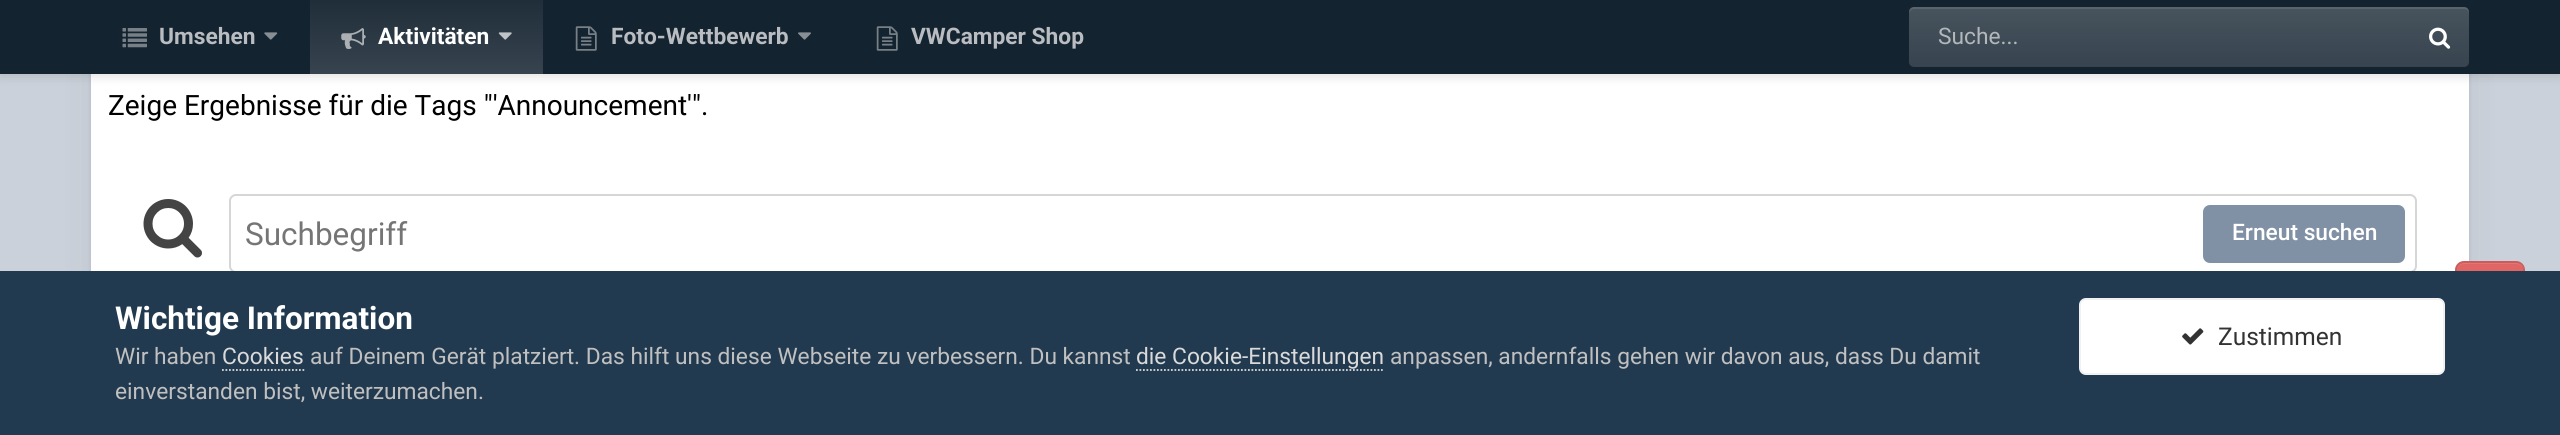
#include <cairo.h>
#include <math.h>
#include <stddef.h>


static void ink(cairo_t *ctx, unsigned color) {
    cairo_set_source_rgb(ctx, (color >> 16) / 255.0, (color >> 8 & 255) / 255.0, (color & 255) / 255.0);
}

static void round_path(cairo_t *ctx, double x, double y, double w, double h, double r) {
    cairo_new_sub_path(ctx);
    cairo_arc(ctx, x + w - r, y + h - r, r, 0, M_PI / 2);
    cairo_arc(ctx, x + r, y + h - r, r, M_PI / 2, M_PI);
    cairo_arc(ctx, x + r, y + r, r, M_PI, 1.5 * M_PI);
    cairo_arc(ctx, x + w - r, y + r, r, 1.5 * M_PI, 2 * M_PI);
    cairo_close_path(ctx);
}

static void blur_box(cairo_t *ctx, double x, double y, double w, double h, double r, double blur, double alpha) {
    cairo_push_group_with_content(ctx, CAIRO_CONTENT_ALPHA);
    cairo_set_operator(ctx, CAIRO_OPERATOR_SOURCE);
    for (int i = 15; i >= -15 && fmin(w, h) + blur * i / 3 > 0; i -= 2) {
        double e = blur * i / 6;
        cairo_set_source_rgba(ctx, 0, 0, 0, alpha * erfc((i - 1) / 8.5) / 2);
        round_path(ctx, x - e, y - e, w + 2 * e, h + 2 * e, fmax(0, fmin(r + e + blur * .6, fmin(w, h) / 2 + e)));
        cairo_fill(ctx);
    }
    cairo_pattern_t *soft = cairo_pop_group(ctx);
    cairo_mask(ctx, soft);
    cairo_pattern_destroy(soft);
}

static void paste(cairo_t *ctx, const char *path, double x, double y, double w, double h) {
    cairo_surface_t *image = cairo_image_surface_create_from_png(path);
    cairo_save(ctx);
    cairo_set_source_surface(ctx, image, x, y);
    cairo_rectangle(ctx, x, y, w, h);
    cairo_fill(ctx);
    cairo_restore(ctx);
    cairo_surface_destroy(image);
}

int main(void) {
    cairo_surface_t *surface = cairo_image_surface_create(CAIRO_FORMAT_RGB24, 2560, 435);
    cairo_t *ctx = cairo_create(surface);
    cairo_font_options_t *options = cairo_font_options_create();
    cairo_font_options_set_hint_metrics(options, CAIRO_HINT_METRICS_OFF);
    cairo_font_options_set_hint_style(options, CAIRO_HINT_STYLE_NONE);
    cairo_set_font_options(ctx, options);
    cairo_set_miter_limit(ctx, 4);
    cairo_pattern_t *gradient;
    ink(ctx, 0xCBD1DA);
    cairo_paint(ctx);
    ink(ctx, 0x000000);
    blur_box(ctx, 91, -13, 2378, 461, 5, 2.5, 0.08);
    blur_box(ctx, 91, -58, 2378, 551, 5, 17.5, 0.06);
    ink(ctx, 0xFFFFFF);
    cairo_rectangle(ctx, 91, 74, 2378, 197);
    cairo_fill(ctx);
    ink(ctx, 0x000000);
    blur_box(ctx, 0, 2, 2560, 73, 0, 6, 0.15);
    ink(ctx, 0x142330);
    cairo_rectangle(ctx, 0, 0, 2560, 74);
    cairo_fill(ctx);
    paste(ctx, "media/1.png", 122, 28, 25, 20);
    cairo_select_font_face(ctx, "Roboto", CAIRO_FONT_SLANT_NORMAL, CAIRO_FONT_WEIGHT_BOLD);
    cairo_set_font_size(ctx, 22.75);
    ink(ctx, 0xB9BDC1);
    cairo_move_to(ctx, 159, 44);
    cairo_show_text(ctx, "Umsehen");
    paste(ctx, "media/2.png", 264, 32, 14, 8);
    gradient = cairo_pattern_create_linear(426, 0, 426, 74);
    cairo_pattern_add_color_stop_rgba(gradient, 0, 0.125, 0.18, 0.227, 1);
    cairo_pattern_add_color_stop_rgba(gradient, 1, 0.216, 0.267, 0.31, 1);
    cairo_set_source(ctx, gradient);
    cairo_pattern_destroy(gradient);
    cairo_rectangle(ctx, 310, 0, 233, 74);
    cairo_fill(ctx);
    paste(ctx, "media/3.png", 341, 28, 25, 21);
    ink(ctx, 0xFFFFFF);
    cairo_move_to(ctx, 378, 44);
    cairo_show_text(ctx, "Aktivitäten");
    paste(ctx, "media/4.png", 498, 32, 14, 8);
    paste(ctx, "media/5.png", 575, 26, 22, 25);
    ink(ctx, 0xB9BDC1);
    cairo_move_to(ctx, 611, 44);
    cairo_show_text(ctx, "Foto-Wettbewerb");
    paste(ctx, "media/6.png", 798, 32, 13, 8);
    paste(ctx, "media/5.png", 876, 26, 22, 25);
    cairo_move_to(ctx, 911, 44);
    cairo_show_text(ctx, "VWCamper Shop");
    ink(ctx, 0x37444F);
    round_path(ctx, 1909, 7, 560, 60, 5);
    cairo_fill(ctx);
    gradient = cairo_pattern_create_linear(2189, 7, 2189, 67);
    cairo_pattern_add_color_stop_rgba(gradient, 0, 1, 1, 1, 0.08);
    cairo_pattern_add_color_stop_rgba(gradient, 1, 1, 1, 1, 0);
    cairo_set_source(ctx, gradient);
    cairo_pattern_destroy(gradient);
    round_path(ctx, 1909, 7, 560, 60, 5);
    cairo_fill(ctx);
    cairo_set_source_rgba(ctx, 1, 1, 1, 0.1);
    cairo_new_path(ctx);
    cairo_move_to(ctx, 1914, 9);
    cairo_line_to(ctx, 2464, 9);
    cairo_curve_to(ctx, 2467, 9, 2469, 11, 2469, 14);
    cairo_line_to(ctx, 2469, 12);
    cairo_curve_to(ctx, 2469, 9, 2467, 7, 2464, 7);
    cairo_line_to(ctx, 1914, 7);
    cairo_curve_to(ctx, 1911, 7, 1909, 9, 1909, 12);
    cairo_line_to(ctx, 1909, 14);
    cairo_curve_to(ctx, 1909, 11, 1912, 9, 1914, 9);
    cairo_close_path(ctx);
    cairo_fill(ctx);
    cairo_select_font_face(ctx, "Roboto", CAIRO_FONT_SLANT_NORMAL, CAIRO_FONT_WEIGHT_NORMAL);
    ink(ctx, 0xB2B7BB);
    cairo_move_to(ctx, 1938, 44);
    cairo_show_text(ctx, "Suche...");
    paste(ctx, "media/7.png", 2429, 27, 22, 22);
    cairo_set_font_size(ctx, 28);
    ink(ctx, 0x000000);
    cairo_move_to(ctx, 108, 115);
    cairo_show_text(ctx, "Zeige Ergebnisse für die Tags \"'Announcement'\".");
    paste(ctx, "media/8.png", 143, 199, 59, 59);
    round_path(ctx, 230, 195, 2186, 77, 6);
    ink(ctx, 0xD6D6D6);
    cairo_stroke(ctx);
    cairo_set_font_size(ctx, 31.5);
    ink(ctx, 0x757575);
    cairo_move_to(ctx, 245, 245);
    cairo_show_text(ctx, "Suchbegriff");
    ink(ctx, 0x8191A5);
    round_path(ctx, 2203, 205, 202, 58, 7);
    cairo_fill(ctx);
    cairo_select_font_face(ctx, "Roboto Medium", CAIRO_FONT_SLANT_NORMAL, CAIRO_FONT_WEIGHT_NORMAL);
    cairo_set_font_size(ctx, 22.75);
    ink(ctx, 0xFFFFFF);
    cairo_move_to(ctx, 2232, 240);
    cairo_show_text(ctx, "Erneut suchen");
    ink(ctx, 0xE06666);
    round_path(ctx, 2455, 261, 70, 70, 9);
    cairo_fill(ctx);
    ink(ctx, 0xE37575);
    cairo_new_path(ctx);
    cairo_move_to(ctx, 2464, 264);
    cairo_line_to(ctx, 2516, 264);
    cairo_curve_to(ctx, 2520, 264, 2524, 267, 2524, 271);
    cairo_curve_to(ctx, 2524, 261, 2515, 263, 2508, 263);
    cairo_line_to(ctx, 2473, 263);
    cairo_curve_to(ctx, 2466, 263, 2457, 261, 2457, 271);
    cairo_curve_to(ctx, 2457, 267, 2460, 264, 2464, 264);
    cairo_close_path(ctx);
    cairo_fill(ctx);
    round_path(ctx, 2456, 262, 68, 68, 8);
    cairo_set_source_rgba(ctx, 0, 0, 0, 0.1);
    cairo_stroke(ctx);
    ink(ctx, 0x223A50);
    cairo_rectangle(ctx, 0, 271, 2560, 164);
    cairo_fill(ctx);
    cairo_select_font_face(ctx, "Roboto", CAIRO_FONT_SLANT_NORMAL, CAIRO_FONT_WEIGHT_BOLD);
    cairo_set_font_size(ctx, 31.5);
    ink(ctx, 0xFFFFFF);
    cairo_move_to(ctx, 115, 329);
    cairo_show_text(ctx, "Wichtige Information");
    cairo_select_font_face(ctx, "Roboto", CAIRO_FONT_SLANT_NORMAL, CAIRO_FONT_WEIGHT_NORMAL);
    cairo_set_font_size(ctx, 22.75);
    ink(ctx, 0xC0C0C0);
    cairo_move_to(ctx, 115, 364);
    cairo_show_text(ctx, "Wir haben");
    ink(ctx, 0xDADADA);
    cairo_move_to(ctx, 222, 364);
    cairo_show_text(ctx, "Cookies");
    cairo_new_path(ctx);
    cairo_move_to(ctx, 222, 370);
    cairo_line_to(ctx, 304.5, 370);
    cairo_set_line_width(ctx, 1.8);
    cairo_set_dash(ctx, (double[]){1.75, 1.75}, 2, 0);
    cairo_stroke(ctx);
    ink(ctx, 0xC0C0C0);
    cairo_move_to(ctx, 310, 364);
    cairo_show_text(ctx, "auf Deinem Gerät platziert. Das hilft uns diese Webseite zu verbessern. Du kannst");
    ink(ctx, 0xDADADA);
    cairo_move_to(ctx, 1136, 364);
    cairo_show_text(ctx, "die Cookie-Einstellungen");
    cairo_new_path(ctx);
    cairo_move_to(ctx, 1136, 370);
    cairo_line_to(ctx, 1384, 370);
    cairo_stroke(ctx);
    ink(ctx, 0xC0C0C0);
    cairo_move_to(ctx, 1390, 364);
    cairo_show_text(ctx, "anpassen, andernfalls gehen wir davon aus, dass Du damit");
    cairo_move_to(ctx, 115, 399);
    cairo_show_text(ctx, "einverstanden bist, weiterzumachen.");
    ink(ctx, 0xFFFFFF);
    round_path(ctx, 2079, 298, 366, 77, 7);
    cairo_fill(ctx);
    round_path(ctx, 2080, 299, 364, 75, 6);
    cairo_set_source_rgba(ctx, 0.2, 0.2, 0.2, 0.07);
    cairo_set_line_width(ctx, 2);
    cairo_set_dash(ctx, NULL, 0, 0);
    cairo_stroke(ctx);
    paste(ctx, "media/9.png", 2182, 328, 22, 17);
    cairo_set_font_size(ctx, 24.5);
    ink(ctx, 0x333333);
    cairo_move_to(ctx, 2218, 345);
    cairo_show_text(ctx, "Zustimmen");
    cairo_surface_write_to_png(surface, "image.png");
    cairo_font_options_destroy(options);
    cairo_destroy(ctx);
    cairo_surface_destroy(surface);
    return 0;
}
